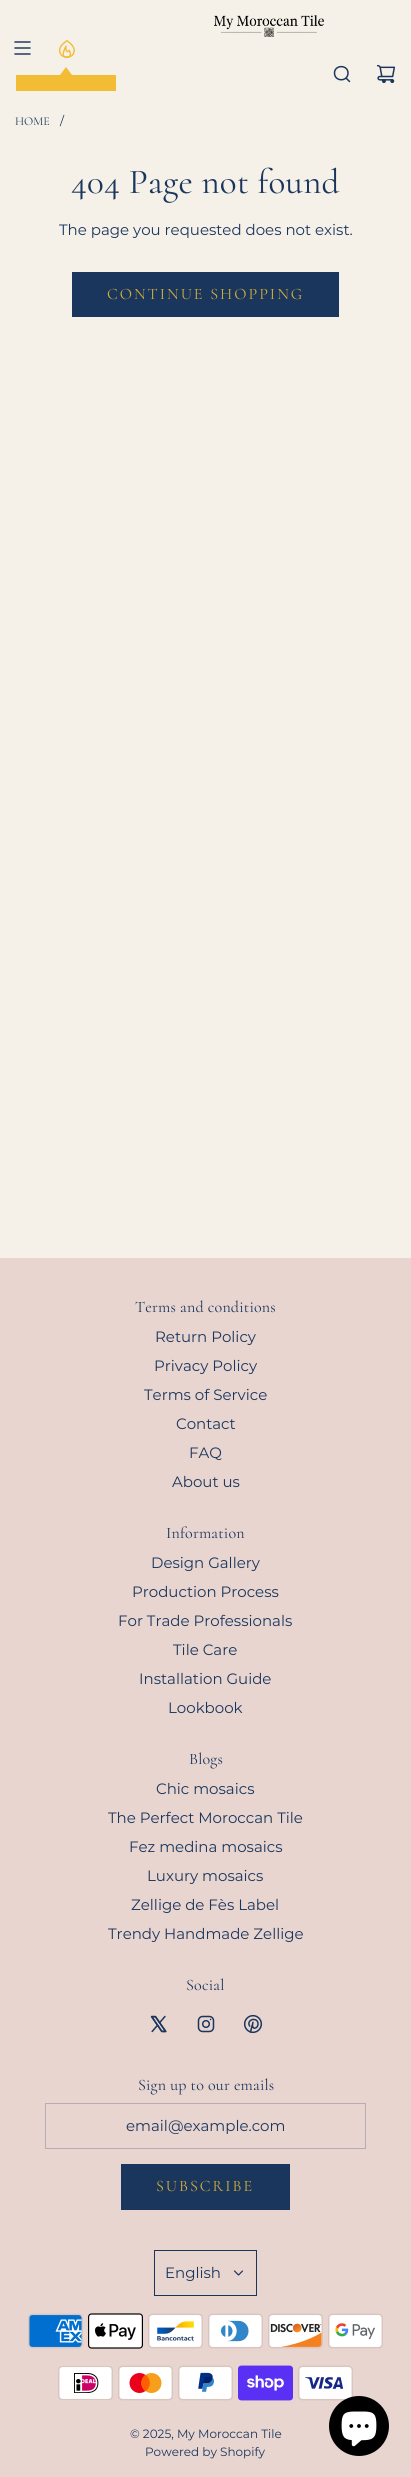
#include <cairo.h>
#include <math.h>
#include <stddef.h>

typedef struct { double x, y; const char *s; } line_t;

static void ink(cairo_t *ctx, unsigned color) {
    cairo_set_source_rgb(ctx, (color >> 16) / 255.0, (color >> 8 & 255) / 255.0, (color & 255) / 255.0);
}

static void write_spaced(cairo_t *ctx, double x, double y, const char *s, double letter, double word) {
    cairo_move_to(ctx, x, y);
    while (*s) {
        char ch[5] = {0};
        int n = 0;
        do ch[n++] = *s++; while ((*s & 0xC0) == 0x80);
        cairo_show_text(ctx, ch);
        cairo_rel_move_to(ctx, letter + word * (*ch == ' '), 0);
    }
}

static void paste(cairo_t *ctx, const char *path, double x, double y, double w, double h) {
    cairo_surface_t *image = cairo_image_surface_create_from_png(path);
    cairo_save(ctx);
    cairo_set_source_surface(ctx, image, x, y);
    cairo_rectangle(ctx, x, y, w, h);
    cairo_fill(ctx);
    cairo_restore(ctx);
    cairo_surface_destroy(image);
}

int main(void) {
    cairo_surface_t *surface = cairo_image_surface_create(CAIRO_FORMAT_RGB24, 411, 2477);
    cairo_t *ctx = cairo_create(surface);
    cairo_font_options_t *options = cairo_font_options_create();
    cairo_font_options_set_hint_metrics(options, CAIRO_HINT_METRICS_OFF);
    cairo_font_options_set_hint_style(options, CAIRO_HINT_STYLE_NONE);
    cairo_set_font_options(ctx, options);
    cairo_set_miter_limit(ctx, 4);
    ink(ctx, 0xF5F1E8);
    cairo_paint(ctx);
    paste(ctx, "media/1.png", 58, 40, 17, 18);
    ink(ctx, 0xF2BD35);
    cairo_rectangle(ctx, 16, 75, 100, 16);
    cairo_fill(ctx);
    cairo_new_path(ctx);
    cairo_move_to(ctx, 72, 75);
    cairo_line_to(ctx, 60, 75);
    cairo_line_to(ctx, 66, 67);
    cairo_close_path(ctx);
    cairo_fill(ctx);
    cairo_new_path(ctx);
    cairo_move_to(ctx, 15, 42);
    cairo_line_to(ctx, 30, 42);
    cairo_move_to(ctx, 15, 48);
    cairo_line_to(ctx, 30, 48);
    cairo_move_to(ctx, 15, 54);
    cairo_line_to(ctx, 30, 54);
    ink(ctx, 0x1B365D);
    cairo_set_line_width(ctx, 1.5);
    cairo_set_line_cap(ctx, CAIRO_LINE_CAP_ROUND);
    cairo_set_line_join(ctx, CAIRO_LINE_JOIN_ROUND);
    cairo_stroke(ctx);
    paste(ctx, "media/2.png", 214, 15, 110, 22);
    cairo_new_path(ctx);
    cairo_move_to(ctx, 346, 78);
    cairo_line_to(ctx, 349.5, 81.5);
    cairo_move_to(ctx, 334.5, 73);
    cairo_curve_to(ctx, 334.5, 82, 348, 82, 348, 73);
    cairo_curve_to(ctx, 348, 64.5, 334.5, 64.5, 334.5, 73);
    cairo_close_path(ctx);
    cairo_stroke(ctx);
    paste(ctx, "media/3.png", 376, 64, 20, 20);
    cairo_select_font_face(ctx, "Cormorant", CAIRO_FONT_SLANT_NORMAL, CAIRO_FONT_WEIGHT_NORMAL);
    cairo_set_font_size(ctx, 12);
    cairo_move_to(ctx, 15, 125);
    cairo_show_text(ctx, "HOME");
    cairo_select_font_face(ctx, "Montserrat", CAIRO_FONT_SLANT_NORMAL, CAIRO_FONT_WEIGHT_NORMAL);
    cairo_move_to(ctx, 60, 125);
    cairo_show_text(ctx, "/");
    cairo_select_font_face(ctx, "Cormorant", CAIRO_FONT_SLANT_NORMAL, CAIRO_FONT_WEIGHT_NORMAL);
    cairo_set_font_size(ctx, 35);
    write_spaced(ctx, 71, 193, "404 Page not found", 0.3, 0);
    cairo_select_font_face(ctx, "Montserrat", CAIRO_FONT_SLANT_NORMAL, CAIRO_FONT_WEIGHT_NORMAL);
    cairo_set_font_size(ctx, 15);
    cairo_move_to(ctx, 59, 235);
    cairo_show_text(ctx, "The page you requested does not exist.");
    cairo_rectangle(ctx, 72, 272, 267, 45);
    cairo_fill(ctx);
    cairo_select_font_face(ctx, "Cormorant", CAIRO_FONT_SLANT_NORMAL, CAIRO_FONT_WEIGHT_NORMAL);
    cairo_set_font_size(ctx, 16);
    ink(ctx, 0xD4AF37);
    write_spaced(ctx, 107, 299, "CONTINUE SHOPPING", 2, 0);
    ink(ctx, 0xE8D5CF);
    cairo_rectangle(ctx, 0, 1258, 411, 1219);
    cairo_fill(ctx);
    ink(ctx, 0x1B365D);
    write_spaced(ctx, 135, 1312, "Terms and conditions", 0.2, 0);
    cairo_select_font_face(ctx, "Montserrat", CAIRO_FONT_SLANT_NORMAL, CAIRO_FONT_WEIGHT_NORMAL);
    cairo_set_font_size(ctx, 15);
    {
        static const line_t items[] = {
            {155, 1342, "Return Policy"},
            {154, 1371, "Privacy Policy"},
            {144, 1400, "Terms of Service"},
            {176, 1429, "Contact"},
            {189, 1458, "FAQ"},
            {172, 1487, "About us"},
        };
        for (size_t i = 0; i < sizeof items / sizeof *items; i++) {
            cairo_move_to(ctx, items[i].x, items[i].y);
            cairo_show_text(ctx, items[i].s);
        }
    }
    cairo_select_font_face(ctx, "Cormorant", CAIRO_FONT_SLANT_NORMAL, CAIRO_FONT_WEIGHT_NORMAL);
    cairo_set_font_size(ctx, 16);
    write_spaced(ctx, 166, 1538, "Information", 0.2, 0);
    cairo_select_font_face(ctx, "Montserrat", CAIRO_FONT_SLANT_NORMAL, CAIRO_FONT_WEIGHT_NORMAL);
    cairo_set_font_size(ctx, 15);
    {
        static const line_t items[] = {
            {151, 1568, "Design Gallery"},
            {132, 1597, "Production Process"},
            {118, 1626, "For Trade Professionals"},
            {173, 1655, "Tile Care"},
            {139, 1684, "Installation Guide"},
            {168, 1713, "Lookbook"},
        };
        for (size_t i = 0; i < sizeof items / sizeof *items; i++) {
            cairo_move_to(ctx, items[i].x, items[i].y);
            cairo_show_text(ctx, items[i].s);
        }
    }
    cairo_select_font_face(ctx, "Cormorant", CAIRO_FONT_SLANT_NORMAL, CAIRO_FONT_WEIGHT_NORMAL);
    cairo_set_font_size(ctx, 16);
    write_spaced(ctx, 189, 1764, "Blogs", 0.2, 0);
    cairo_select_font_face(ctx, "Montserrat", CAIRO_FONT_SLANT_NORMAL, CAIRO_FONT_WEIGHT_NORMAL);
    cairo_set_font_size(ctx, 15);
    {
        static const line_t items[] = {
            {156, 1794, "Chic mosaics"},
            {108, 1823, "The Perfect Moroccan Tile"},
            {129, 1852, "Fez medina mosaics"},
            {147, 1881, "Luxury mosaics"},
            {131, 1910, "Zellige de Fès Label"},
            {108, 1939, "Trendy Handmade Zellige"},
        };
        for (size_t i = 0; i < sizeof items / sizeof *items; i++) {
            cairo_move_to(ctx, items[i].x, items[i].y);
            cairo_show_text(ctx, items[i].s);
        }
    }
    cairo_select_font_face(ctx, "Cormorant", CAIRO_FONT_SLANT_NORMAL, CAIRO_FONT_WEIGHT_NORMAL);
    cairo_set_font_size(ctx, 16);
    write_spaced(ctx, 186, 1990, "Social", 0.2, 0);
    paste(ctx, "media/4.png", 150, 2015, 17, 18);
    paste(ctx, "media/5.png", 197, 2015, 18, 18);
    paste(ctx, "media/6.png", 243, 2014, 20, 20);
    write_spaced(ctx, 138, 2090, "Sign up to our emails", 0.2, 0);
    cairo_rectangle(ctx, 45.5, 2103.5, 320, 45);
    ink(ctx, 0xB5ADB3);
    cairo_set_line_width(ctx, 1);
    cairo_set_line_cap(ctx, CAIRO_LINE_CAP_BUTT);
    cairo_set_line_join(ctx, CAIRO_LINE_JOIN_MITER);
    cairo_stroke(ctx);
    cairo_select_font_face(ctx, "Montserrat", CAIRO_FONT_SLANT_NORMAL, CAIRO_FONT_WEIGHT_NORMAL);
    cairo_set_font_size(ctx, 15);
    ink(ctx, 0x1B365D);
    cairo_move_to(ctx, 126, 2131);
    cairo_show_text(ctx, "email@example.com");
    cairo_rectangle(ctx, 121, 2164, 169, 46);
    cairo_fill(ctx);
    cairo_select_font_face(ctx, "Cormorant", CAIRO_FONT_SLANT_NORMAL, CAIRO_FONT_WEIGHT_NORMAL);
    cairo_set_font_size(ctx, 16);
    ink(ctx, 0xD4AF37);
    write_spaced(ctx, 156, 2191, "SUBSCRIBE", 2, 0);
    cairo_rectangle(ctx, 154.5, 2250.5, 102, 45);
    ink(ctx, 0x1B365D);
    cairo_stroke(ctx);
    cairo_select_font_face(ctx, "Montserrat", CAIRO_FONT_SLANT_NORMAL, CAIRO_FONT_WEIGHT_NORMAL);
    cairo_set_font_size(ctx, 15);
    cairo_move_to(ctx, 165, 2278);
    cairo_show_text(ctx, "English");
    cairo_new_path(ctx);
    cairo_move_to(ctx, 234.5, 2271);
    cairo_line_to(ctx, 238.5, 2275);
    cairo_line_to(ctx, 242.5, 2271);
    cairo_set_line_width(ctx, 1.2);
    cairo_set_line_cap(ctx, CAIRO_LINE_CAP_ROUND);
    cairo_set_line_join(ctx, CAIRO_LINE_JOIN_ROUND);
    cairo_stroke(ctx);
    paste(ctx, "media/7.png", 28, 2313, 55, 36);
    paste(ctx, "media/8.png", 88, 2313, 55, 36);
    paste(ctx, "media/9.png", 148, 2313, 55, 36);
    paste(ctx, "media/10.png", 208, 2313, 55, 36);
    paste(ctx, "media/11.png", 268, 2313, 55, 36);
    paste(ctx, "media/12.png", 328, 2313, 55, 36);
    paste(ctx, "media/13.png", 58, 2366, 55, 34);
    paste(ctx, "media/14.png", 118, 2365, 55, 36);
    paste(ctx, "media/15.png", 178, 2365, 55, 36);
    paste(ctx, "media/16.png", 238, 2365, 55, 36);
    paste(ctx, "media/17.png", 298, 2365, 55, 36);
    cairo_set_font_size(ctx, 12);
    cairo_move_to(ctx, 130, 2438);
    cairo_show_text(ctx, "© 2025, My Moroccan Tile");
    cairo_move_to(ctx, 145, 2456);
    cairo_show_text(ctx, "Powered by Shopify");
    ink(ctx, 0x000000);
    cairo_new_path(ctx);
    cairo_arc(ctx, 359, 2426, 30, 0, 2 * M_PI);
    cairo_fill(ctx);
    paste(ctx, "media/18.png", 341, 2411, 36, 36);
    cairo_surface_write_to_png(surface, "image.png");
    cairo_font_options_destroy(options);
    cairo_destroy(ctx);
    cairo_surface_destroy(surface);
    return 0;
}
